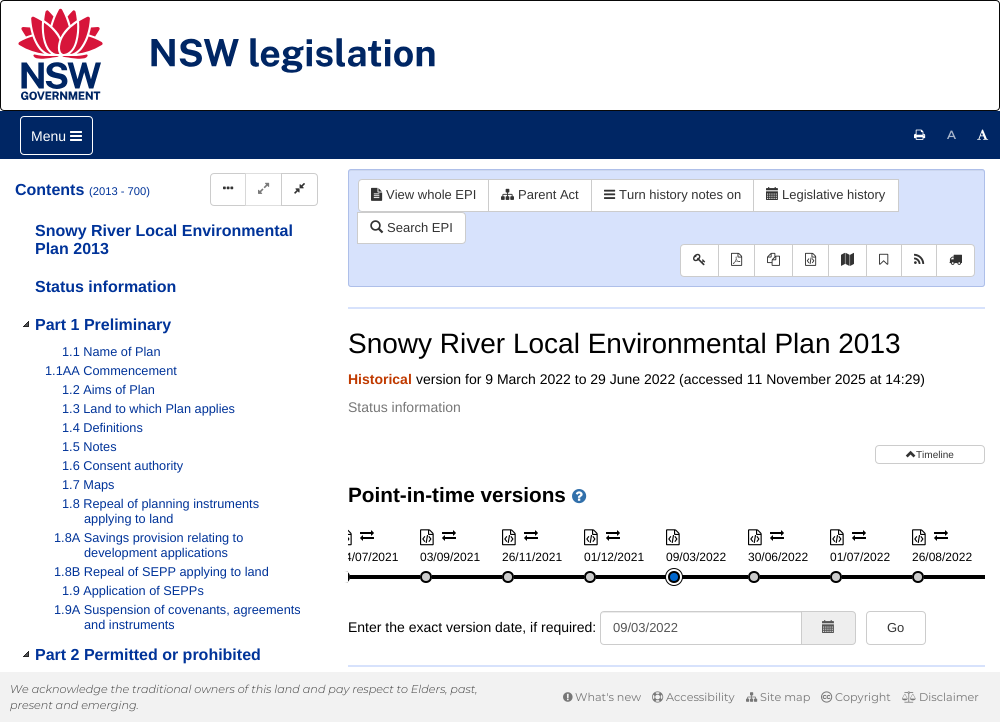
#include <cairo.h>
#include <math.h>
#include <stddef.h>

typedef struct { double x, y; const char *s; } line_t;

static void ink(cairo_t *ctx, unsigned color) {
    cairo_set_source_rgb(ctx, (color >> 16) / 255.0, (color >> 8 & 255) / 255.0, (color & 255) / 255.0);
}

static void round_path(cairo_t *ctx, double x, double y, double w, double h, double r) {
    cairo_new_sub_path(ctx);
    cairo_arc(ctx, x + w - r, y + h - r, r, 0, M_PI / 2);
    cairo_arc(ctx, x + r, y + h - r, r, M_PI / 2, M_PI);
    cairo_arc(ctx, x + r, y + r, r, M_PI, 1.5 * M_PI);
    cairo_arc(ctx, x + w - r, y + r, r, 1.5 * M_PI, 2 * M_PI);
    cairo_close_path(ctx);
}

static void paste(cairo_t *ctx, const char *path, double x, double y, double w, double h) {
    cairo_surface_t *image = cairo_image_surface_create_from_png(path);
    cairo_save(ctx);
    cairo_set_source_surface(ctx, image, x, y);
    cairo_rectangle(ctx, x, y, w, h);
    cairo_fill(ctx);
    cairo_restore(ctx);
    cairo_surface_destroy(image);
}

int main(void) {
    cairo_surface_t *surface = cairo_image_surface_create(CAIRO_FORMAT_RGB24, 1000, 722);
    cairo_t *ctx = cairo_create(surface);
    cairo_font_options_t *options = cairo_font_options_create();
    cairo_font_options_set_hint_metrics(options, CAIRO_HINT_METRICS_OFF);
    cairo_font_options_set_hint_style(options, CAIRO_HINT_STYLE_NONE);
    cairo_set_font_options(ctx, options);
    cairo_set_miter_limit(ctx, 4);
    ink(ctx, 0xFFFFFF);
    cairo_paint(ctx);
    round_path(ctx, 0.5, 0.5, 999, 110, 3.5);
    ink(ctx, 0x080808);
    cairo_set_line_width(ctx, 1);
    cairo_stroke(ctx);
    paste(ctx, "media/1.png", 18, 8, 417, 92);
    ink(ctx, 0x002664);
    cairo_rectangle(ctx, 0, 111, 1000, 48);
    cairo_fill(ctx);
    round_path(ctx, 20.5, 116.5, 72, 38, 3.5);
    ink(ctx, 0xFFFFFF);
    cairo_stroke(ctx);
    cairo_select_font_face(ctx, "Liberation Sans", CAIRO_FONT_SLANT_NORMAL, CAIRO_FONT_WEIGHT_NORMAL);
    cairo_set_font_size(ctx, 14);
    cairo_move_to(ctx, 31, 141);
    cairo_show_text(ctx, "Menu");
    paste(ctx, "media/2.png", 70, 131, 12, 10);
    paste(ctx, "media/3.png", 914, 129, 12, 11);
    cairo_select_font_face(ctx, "Montserrat SemiBold", CAIRO_FONT_SLANT_NORMAL, CAIRO_FONT_WEIGHT_NORMAL);
    cairo_set_font_size(ctx, 12);
    ink(ctx, 0xA6B3C9);
    cairo_move_to(ctx, 947, 139);
    cairo_show_text(ctx, "A");
    paste(ctx, "media/4.png", 977, 129, 12, 11);
    cairo_select_font_face(ctx, "Liberation Sans", CAIRO_FONT_SLANT_NORMAL, CAIRO_FONT_WEIGHT_BOLD);
    cairo_set_font_size(ctx, 16);
    ink(ctx, 0x003399);
    cairo_move_to(ctx, 15, 195);
    cairo_show_text(ctx, "Contents");
    cairo_select_font_face(ctx, "Liberation Sans", CAIRO_FONT_SLANT_NORMAL, CAIRO_FONT_WEIGHT_NORMAL);
    cairo_set_font_size(ctx, 11.2);
    cairo_move_to(ctx, 89, 195);
    cairo_show_text(ctx, "(2013 - 700)");
    cairo_new_path(ctx);
    cairo_move_to(ctx, 214, 173.5);
    cairo_line_to(ctx, 245.5, 173.5);
    cairo_line_to(ctx, 245.5, 205.5);
    cairo_line_to(ctx, 214, 205.5);
    cairo_curve_to(ctx, 212, 205.5, 210.5, 204, 210.5, 202);
    cairo_line_to(ctx, 210.5, 177);
    cairo_curve_to(ctx, 210.5, 175, 212, 173.5, 214, 173.5);
    cairo_close_path(ctx);
    ink(ctx, 0xCCCCCC);
    cairo_stroke(ctx);
    paste(ctx, "media/5.png", 223, 186, 11, 4);
    cairo_set_source_rgba(ctx, 1, 1, 1, 0.65);
    cairo_rectangle(ctx, 245, 173, 1, 33);
    cairo_fill(ctx);
    cairo_rectangle(ctx, 245.5, 173.5, 36, 32);
    cairo_set_source_rgba(ctx, 0.8, 0.8, 0.8, 0.65);
    cairo_stroke(ctx);
    paste(ctx, "media/6.png", 258, 182, 12, 12);
    ink(ctx, 0xFFFFFF);
    cairo_new_path(ctx);
    cairo_move_to(ctx, 281.5, 173.5);
    cairo_line_to(ctx, 314, 173.5);
    cairo_curve_to(ctx, 316, 173.5, 317.5, 175, 317.5, 177);
    cairo_line_to(ctx, 317.5, 202);
    cairo_curve_to(ctx, 317.5, 204, 316, 205.5, 314, 205.5);
    cairo_line_to(ctx, 281.5, 205.5);
    cairo_close_path(ctx);
    cairo_fill_preserve(ctx);
    ink(ctx, 0xCCCCCC);
    cairo_stroke(ctx);
    paste(ctx, "media/7.png", 294, 183, 11, 11);
    cairo_select_font_face(ctx, "Liberation Sans", CAIRO_FONT_SLANT_NORMAL, CAIRO_FONT_WEIGHT_BOLD);
    cairo_set_font_size(ctx, 16);
    ink(ctx, 0x003399);
    {
        static const line_t items[] = {
            {35, 236, "Snowy River Local Environmental"},
            {35, 254, "Plan 2013"},
            {35, 292, "Status information"},
        };
        for (size_t i = 0; i < sizeof items / sizeof *items; i++) {
            cairo_move_to(ctx, items[i].x, items[i].y);
            cairo_show_text(ctx, items[i].s);
        }
    }
    paste(ctx, "media/8.png", 23, 321, 6, 6);
    cairo_move_to(ctx, 35, 330);
    cairo_show_text(ctx, "Part 1 Preliminary");
    cairo_select_font_face(ctx, "Liberation Sans", CAIRO_FONT_SLANT_NORMAL, CAIRO_FONT_WEIGHT_NORMAL);
    cairo_set_font_size(ctx, 12.75);
    {
        static const line_t items[] = {
            {62, 356, "1.1 Name of Plan"},
            {45, 375, "1.1AA Commencement"},
            {62, 394, "1.2 Aims of Plan"},
            {62, 413, "1.3 Land to which Plan applies"},
            {62, 432, "1.4 Definitions"},
            {62, 451, "1.5 Notes"},
            {62, 470, "1.6 Consent authority"},
            {62, 489, "1.7 Maps"},
            {62, 508, "1.8 Repeal of planning instruments"},
            {84, 523, "applying to land"},
            {54, 542, "1.8A Savings provision relating to"},
            {84, 557, "development applications"},
            {54, 576, "1.8B Repeal of SEPP applying to land"},
            {62, 595, "1.9 Application of SEPPs"},
            {54, 614, "1.9A Suspension of covenants, agreements"},
            {84, 629, "and instruments"},
        };
        for (size_t i = 0; i < sizeof items / sizeof *items; i++) {
            cairo_move_to(ctx, items[i].x, items[i].y);
            cairo_show_text(ctx, items[i].s);
        }
    }
    paste(ctx, "media/8.png", 23, 651, 6, 6);
    cairo_select_font_face(ctx, "Liberation Sans", CAIRO_FONT_SLANT_NORMAL, CAIRO_FONT_WEIGHT_BOLD);
    cairo_set_font_size(ctx, 16);
    cairo_move_to(ctx, 35, 660);
    cairo_show_text(ctx, "Part 2 Permitted or prohibited");
    ink(ctx, 0xD7E2FC);
    round_path(ctx, 348, 169, 637, 118, 3);
    cairo_fill(ctx);
    ink(ctx, 0xCCD7EF);
    cairo_new_path(ctx);
    cairo_move_to(ctx, 351, 171);
    cairo_line_to(ctx, 982, 171);
    cairo_curve_to(ctx, 983, 171, 984, 172, 984, 173);
    cairo_curve_to(ctx, 984, 172, 984, 170, 982, 170);
    cairo_line_to(ctx, 351, 170);
    cairo_curve_to(ctx, 349, 170, 349, 172, 349, 173);
    cairo_curve_to(ctx, 349, 172, 350, 171, 351, 171);
    cairo_close_path(ctx);
    cairo_fill(ctx);
    round_path(ctx, 348.5, 169.5, 636, 117, 2.5);
    ink(ctx, 0xAEBFE9);
    cairo_stroke(ctx);
    ink(ctx, 0xFFFFFF);
    cairo_new_path(ctx);
    cairo_move_to(ctx, 362, 179.5);
    cairo_line_to(ctx, 488.5, 179.5);
    cairo_line_to(ctx, 488.5, 211.5);
    cairo_line_to(ctx, 362, 211.5);
    cairo_curve_to(ctx, 360, 211.5, 358.5, 210, 358.5, 208);
    cairo_line_to(ctx, 358.5, 183);
    cairo_curve_to(ctx, 358.5, 181, 360, 179.5, 362, 179.5);
    cairo_close_path(ctx);
    cairo_fill_preserve(ctx);
    ink(ctx, 0xCCCCCC);
    cairo_stroke(ctx);
    paste(ctx, "media/9.png", 371, 187, 12, 14);
    cairo_select_font_face(ctx, "Liberation Sans", CAIRO_FONT_SLANT_NORMAL, CAIRO_FONT_WEIGHT_NORMAL);
    cairo_set_font_size(ctx, 13);
    ink(ctx, 0x333333);
    cairo_move_to(ctx, 386, 199);
    cairo_show_text(ctx, "View whole EPI");
    ink(ctx, 0xFFFFFF);
    cairo_rectangle(ctx, 488.5, 179.5, 103, 32);
    cairo_fill_preserve(ctx);
    ink(ctx, 0xCCCCCC);
    cairo_stroke(ctx);
    paste(ctx, "media/10.png", 501, 188, 13, 12);
    ink(ctx, 0x333333);
    cairo_move_to(ctx, 518, 199);
    cairo_show_text(ctx, "Parent Act");
    ink(ctx, 0xFFFFFF);
    cairo_rectangle(ctx, 591.5, 179.5, 162, 32);
    cairo_fill_preserve(ctx);
    ink(ctx, 0xCCCCCC);
    cairo_stroke(ctx);
    paste(ctx, "media/11.png", 604, 189, 12, 10);
    ink(ctx, 0x333333);
    cairo_move_to(ctx, 619, 199);
    cairo_show_text(ctx, "Turn history notes on");
    ink(ctx, 0xFFFFFF);
    cairo_rectangle(ctx, 753.5, 179.5, 145, 32);
    cairo_fill_preserve(ctx);
    ink(ctx, 0xCCCCCC);
    cairo_stroke(ctx);
    paste(ctx, "media/12.png", 766, 187, 12, 13);
    ink(ctx, 0x333333);
    cairo_move_to(ctx, 782, 199);
    cairo_show_text(ctx, "Legislative history");
    ink(ctx, 0xFFFFFF);
    cairo_new_path(ctx);
    cairo_move_to(ctx, 357.5, 212.5);
    cairo_line_to(ctx, 462, 212.5);
    cairo_curve_to(ctx, 464, 212.5, 465.5, 214, 465.5, 216);
    cairo_line_to(ctx, 465.5, 240);
    cairo_curve_to(ctx, 465.5, 242, 464, 243.5, 462, 243.5);
    cairo_line_to(ctx, 357.5, 243.5);
    cairo_close_path(ctx);
    cairo_fill_preserve(ctx);
    ink(ctx, 0xCCCCCC);
    cairo_stroke(ctx);
    paste(ctx, "media/13.png", 370, 220, 14, 14);
    ink(ctx, 0x333333);
    cairo_move_to(ctx, 387, 232);
    cairo_show_text(ctx, "Search EPI");
    ink(ctx, 0xFFFFFF);
    cairo_new_path(ctx);
    cairo_move_to(ctx, 684, 244.5);
    cairo_line_to(ctx, 718.5, 244.5);
    cairo_line_to(ctx, 718.5, 276.5);
    cairo_line_to(ctx, 684, 276.5);
    cairo_curve_to(ctx, 682, 276.5, 680.5, 275, 680.5, 273);
    cairo_line_to(ctx, 680.5, 248);
    cairo_curve_to(ctx, 680.5, 246, 682, 244.5, 684, 244.5);
    cairo_close_path(ctx);
    cairo_fill_preserve(ctx);
    ink(ctx, 0xCCCCCC);
    cairo_stroke(ctx);
    paste(ctx, "media/14.png", 693, 253, 13, 13);
    ink(ctx, 0xFFFFFF);
    cairo_rectangle(ctx, 718.5, 244.5, 36, 32);
    cairo_fill_preserve(ctx);
    ink(ctx, 0xCCCCCC);
    cairo_stroke(ctx);
    paste(ctx, "media/15.png", 731, 252, 12, 14);
    ink(ctx, 0xFFFFFF);
    cairo_rectangle(ctx, 754.5, 244.5, 38, 32);
    cairo_fill_preserve(ctx);
    ink(ctx, 0xCCCCCC);
    cairo_stroke(ctx);
    paste(ctx, "media/16.png", 767, 252, 13, 14);
    ink(ctx, 0xFFFFFF);
    cairo_rectangle(ctx, 792.5, 244.5, 36, 32);
    cairo_fill_preserve(ctx);
    ink(ctx, 0xCCCCCC);
    cairo_stroke(ctx);
    paste(ctx, "media/17.png", 805, 252, 12, 14);
    ink(ctx, 0xFFFFFF);
    cairo_rectangle(ctx, 828.5, 244.5, 38, 32);
    cairo_fill_preserve(ctx);
    ink(ctx, 0xCCCCCC);
    cairo_stroke(ctx);
    paste(ctx, "media/18.png", 841, 252, 13, 14);
    ink(ctx, 0xFFFFFF);
    cairo_rectangle(ctx, 866.5, 244.5, 35, 32);
    cairo_fill_preserve(ctx);
    ink(ctx, 0xCCCCCC);
    cairo_stroke(ctx);
    paste(ctx, "media/19.png", 879, 253, 10, 12);
    ink(ctx, 0xFFFFFF);
    cairo_rectangle(ctx, 901.5, 244.5, 35, 32);
    cairo_fill_preserve(ctx);
    ink(ctx, 0xCCCCCC);
    cairo_stroke(ctx);
    paste(ctx, "media/20.png", 914, 253, 11, 11);
    ink(ctx, 0xFFFFFF);
    cairo_new_path(ctx);
    cairo_move_to(ctx, 936.5, 244.5);
    cairo_line_to(ctx, 971, 244.5);
    cairo_curve_to(ctx, 973, 244.5, 974.5, 246, 974.5, 248);
    cairo_line_to(ctx, 974.5, 273);
    cairo_curve_to(ctx, 974.5, 275, 973, 276.5, 971, 276.5);
    cairo_line_to(ctx, 936.5, 276.5);
    cairo_close_path(ctx);
    cairo_fill_preserve(ctx);
    ink(ctx, 0xCCCCCC);
    cairo_stroke(ctx);
    paste(ctx, "media/21.png", 949, 254, 13, 11);
    ink(ctx, 0xD7E2FC);
    cairo_rectangle(ctx, 348, 307, 637, 2);
    cairo_fill(ctx);
    cairo_set_font_size(ctx, 28);
    ink(ctx, 0x000000);
    cairo_move_to(ctx, 348, 353);
    cairo_show_text(ctx, "Snowy River Local Environmental Plan 2013");
    cairo_select_font_face(ctx, "Liberation Sans", CAIRO_FONT_SLANT_NORMAL, CAIRO_FONT_WEIGHT_BOLD);
    cairo_set_font_size(ctx, 14);
    ink(ctx, 0xC03A00);
    cairo_move_to(ctx, 348, 384);
    cairo_show_text(ctx, "Historical");
    cairo_select_font_face(ctx, "Liberation Sans", CAIRO_FONT_SLANT_NORMAL, CAIRO_FONT_WEIGHT_NORMAL);
    ink(ctx, 0x000000);
    cairo_move_to(ctx, 416, 384);
    cairo_show_text(ctx, "version for 9 March 2022 to 29 June 2022 (accessed 11 November 2025 at 14:29)");
    ink(ctx, 0x777777);
    cairo_move_to(ctx, 348, 412);
    cairo_show_text(ctx, "Status information");
    round_path(ctx, 875.5, 445.5, 109, 18, 3.5);
    ink(ctx, 0xCCCCCC);
    cairo_stroke(ctx);
    paste(ctx, "media/22.png", 905, 450, 11, 8);
    cairo_set_font_size(ctx, 10);
    ink(ctx, 0x333333);
    cairo_move_to(ctx, 916, 458);
    cairo_show_text(ctx, "Timeline");
    cairo_select_font_face(ctx, "Liberation Sans", CAIRO_FONT_SLANT_NORMAL, CAIRO_FONT_WEIGHT_BOLD);
    cairo_set_font_size(ctx, 20.75);
    ink(ctx, 0x000000);
    cairo_move_to(ctx, 348, 502);
    cairo_show_text(ctx, "Point-in-time versions");
    paste(ctx, "media/23.png", 572, 489, 15, 15);
    paste(ctx, "media/24.png", 348, 529, 4, 17);
    paste(ctx, "media/25.png", 360, 530, 14, 11);
    cairo_save(ctx);
    cairo_rectangle(ctx, 348, 517, 637, 84);
    cairo_clip(ctx);
    cairo_select_font_face(ctx, "Liberation Sans", CAIRO_FONT_SLANT_NORMAL, CAIRO_FONT_WEIGHT_NORMAL);
    cairo_set_font_size(ctx, 12);
    cairo_move_to(ctx, 345, 561);
    cairo_show_text(ctx, "4/07/2021");
    cairo_restore(ctx);
    ink(ctx, 0xCCCCCC);
    cairo_new_path(ctx);
    cairo_move_to(ctx, 348, 571);
    cairo_line_to(ctx, 344, 571);
    cairo_curve_to(ctx, 347.5, 571, 350, 573.5, 350, 577);
    cairo_curve_to(ctx, 350, 580.5, 347.5, 583, 344, 583);
    cairo_line_to(ctx, 348, 583);
    cairo_close_path(ctx);
    cairo_fill(ctx);
    cairo_save(ctx);
    cairo_rectangle(ctx, 348, 517, 637, 84);
    cairo_clip(ctx);
    cairo_arc(ctx, 344, 577, 5, 0, 2 * M_PI);
    ink(ctx, 0x000000);
    cairo_set_line_width(ctx, 2);
    cairo_stroke(ctx);
    cairo_restore(ctx);
    ink(ctx, 0x000000);
    cairo_rectangle(ctx, 350, 575, 70, 4);
    cairo_fill(ctx);
    paste(ctx, "media/26.png", 420, 529, 14, 17);
    paste(ctx, "media/25.png", 442, 530, 14, 11);
    cairo_select_font_face(ctx, "Liberation Sans", CAIRO_FONT_SLANT_NORMAL, CAIRO_FONT_WEIGHT_NORMAL);
    cairo_set_font_size(ctx, 12);
    cairo_move_to(ctx, 420, 561);
    cairo_show_text(ctx, "03/09/2021");
    ink(ctx, 0xCCCCCC);
    cairo_new_path(ctx);
    cairo_arc(ctx, 426, 577, 5, 0, 2 * M_PI);
    cairo_fill_preserve(ctx);
    ink(ctx, 0x000000);
    cairo_set_line_width(ctx, 2);
    cairo_stroke(ctx);
    cairo_rectangle(ctx, 432, 575, 70, 4);
    cairo_fill(ctx);
    paste(ctx, "media/26.png", 502, 529, 14, 17);
    paste(ctx, "media/25.png", 524, 530, 14, 11);
    cairo_move_to(ctx, 502, 561);
    cairo_show_text(ctx, "26/11/2021");
    ink(ctx, 0xCCCCCC);
    cairo_new_path(ctx);
    cairo_arc(ctx, 508, 577, 5, 0, 2 * M_PI);
    cairo_fill_preserve(ctx);
    ink(ctx, 0x000000);
    cairo_stroke(ctx);
    cairo_rectangle(ctx, 514, 575, 70, 4);
    cairo_fill(ctx);
    paste(ctx, "media/26.png", 584, 529, 14, 17);
    paste(ctx, "media/25.png", 606, 530, 14, 11);
    cairo_move_to(ctx, 584, 561);
    cairo_show_text(ctx, "01/12/2021");
    ink(ctx, 0xCCCCCC);
    cairo_new_path(ctx);
    cairo_arc(ctx, 590, 577, 5, 0, 2 * M_PI);
    cairo_fill_preserve(ctx);
    ink(ctx, 0x000000);
    cairo_stroke(ctx);
    cairo_arc(ctx, 674, 577, 8.5, 0, 2 * M_PI);
    cairo_set_line_width(ctx, 1);
    cairo_stroke(ctx);
    cairo_rectangle(ctx, 596, 575, 70, 4);
    cairo_fill(ctx);
    paste(ctx, "media/26.png", 666, 529, 14, 17);
    cairo_move_to(ctx, 666, 561);
    cairo_show_text(ctx, "09/03/2022");
    ink(ctx, 0x0066CC);
    cairo_new_path(ctx);
    cairo_arc(ctx, 674, 577, 5, 0, 2 * M_PI);
    cairo_fill_preserve(ctx);
    ink(ctx, 0x000000);
    cairo_set_line_width(ctx, 2);
    cairo_stroke(ctx);
    cairo_rectangle(ctx, 682, 575, 66, 4);
    cairo_fill(ctx);
    paste(ctx, "media/26.png", 748, 529, 14, 17);
    paste(ctx, "media/25.png", 770, 530, 14, 11);
    cairo_move_to(ctx, 748, 561);
    cairo_show_text(ctx, "30/06/2022");
    ink(ctx, 0xCCCCCC);
    cairo_new_path(ctx);
    cairo_arc(ctx, 754, 577, 5, 0, 2 * M_PI);
    cairo_fill_preserve(ctx);
    ink(ctx, 0x000000);
    cairo_stroke(ctx);
    cairo_rectangle(ctx, 760, 575, 70, 4);
    cairo_fill(ctx);
    paste(ctx, "media/26.png", 830, 529, 14, 17);
    paste(ctx, "media/25.png", 852, 530, 14, 11);
    cairo_move_to(ctx, 830, 561);
    cairo_show_text(ctx, "01/07/2022");
    ink(ctx, 0xCCCCCC);
    cairo_new_path(ctx);
    cairo_arc(ctx, 836, 577, 5, 0, 2 * M_PI);
    cairo_fill_preserve(ctx);
    ink(ctx, 0x000000);
    cairo_stroke(ctx);
    cairo_rectangle(ctx, 842, 575, 70, 4);
    cairo_fill(ctx);
    paste(ctx, "media/26.png", 912, 529, 14, 17);
    paste(ctx, "media/25.png", 934, 530, 14, 11);
    cairo_move_to(ctx, 912, 561);
    cairo_show_text(ctx, "26/08/2022");
    ink(ctx, 0xCCCCCC);
    cairo_new_path(ctx);
    cairo_arc(ctx, 918, 577, 5, 0, 2 * M_PI);
    cairo_fill_preserve(ctx);
    ink(ctx, 0x000000);
    cairo_stroke(ctx);
    cairo_rectangle(ctx, 924, 575, 61, 4);
    cairo_fill(ctx);
    cairo_set_font_size(ctx, 14);
    cairo_move_to(ctx, 348, 632);
    cairo_show_text(ctx, "Enter the exact version date, if required:");
    ink(ctx, 0xEEEEEE);
    cairo_new_path(ctx);
    cairo_move_to(ctx, 801.5, 611.5);
    cairo_line_to(ctx, 852, 611.5);
    cairo_curve_to(ctx, 854, 611.5, 855.5, 613, 855.5, 615);
    cairo_line_to(ctx, 855.5, 641);
    cairo_curve_to(ctx, 855.5, 643, 854, 644.5, 852, 644.5);
    cairo_line_to(ctx, 801.5, 644.5);
    cairo_close_path(ctx);
    cairo_fill_preserve(ctx);
    ink(ctx, 0xCCCCCC);
    cairo_set_line_width(ctx, 1);
    cairo_stroke(ctx);
    ink(ctx, 0xFFFFFF);
    cairo_new_path(ctx);
    cairo_move_to(ctx, 604, 611);
    cairo_line_to(ctx, 802, 611);
    cairo_line_to(ctx, 802, 645);
    cairo_line_to(ctx, 604, 645);
    cairo_curve_to(ctx, 602, 645, 600, 643, 600, 641);
    cairo_line_to(ctx, 600, 615);
    cairo_curve_to(ctx, 600, 613, 602, 611, 604, 611);
    cairo_close_path(ctx);
    cairo_fill(ctx);
    ink(ctx, 0xECECEC);
    cairo_new_path(ctx);
    cairo_move_to(ctx, 604, 613);
    cairo_line_to(ctx, 801, 613);
    cairo_line_to(ctx, 801, 612);
    cairo_line_to(ctx, 604, 612);
    cairo_curve_to(ctx, 602, 612, 601, 614, 601, 616);
    cairo_curve_to(ctx, 601, 614, 602, 613, 604, 613);
    cairo_close_path(ctx);
    cairo_fill(ctx);
    cairo_new_path(ctx);
    cairo_move_to(ctx, 604, 611.5);
    cairo_line_to(ctx, 801.5, 611.5);
    cairo_line_to(ctx, 801.5, 644.5);
    cairo_line_to(ctx, 604, 644.5);
    cairo_curve_to(ctx, 602, 644.5, 600.5, 643, 600.5, 641);
    cairo_line_to(ctx, 600.5, 615);
    cairo_curve_to(ctx, 600.5, 613, 602, 611.5, 604, 611.5);
    cairo_close_path(ctx);
    ink(ctx, 0xCCCCCC);
    cairo_stroke(ctx);
    cairo_set_font_size(ctx, 13);
    ink(ctx, 0x555555);
    cairo_move_to(ctx, 613, 632);
    cairo_show_text(ctx, "09/03/2022");
    paste(ctx, "media/27.png", 822, 620, 12, 13);
    round_path(ctx, 866.5, 611.5, 59, 33, 3.5);
    ink(ctx, 0xCCCCCC);
    cairo_stroke(ctx);
    ink(ctx, 0x333333);
    cairo_move_to(ctx, 887, 632);
    cairo_show_text(ctx, "Go");
    ink(ctx, 0xD7E2FC);
    cairo_rectangle(ctx, 348, 665, 637, 2);
    cairo_fill(ctx);
    ink(ctx, 0xF2F2F2);
    cairo_rectangle(ctx, 0, 672, 1000, 50);
    cairo_fill(ctx);
    cairo_select_font_face(ctx, "Montserrat Light", CAIRO_FONT_SLANT_ITALIC, CAIRO_FONT_WEIGHT_NORMAL);
    cairo_set_font_size(ctx, 11.2);
    ink(ctx, 0x3D3D3D);
    cairo_move_to(ctx, 10, 693);
    cairo_show_text(ctx, "We acknowledge the traditional owners of this land and pay respect to Elders, past,");
    cairo_move_to(ctx, 10, 709);
    cairo_show_text(ctx, "present and emerging.");
    paste(ctx, "media/28.png", 563, 692, 10, 10);
    cairo_select_font_face(ctx, "Montserrat", CAIRO_FONT_SLANT_NORMAL, CAIRO_FONT_WEIGHT_NORMAL);
    ink(ctx, 0x777777);
    cairo_move_to(ctx, 575, 701);
    cairo_show_text(ctx, "What's new");
    paste(ctx, "media/29.png", 652, 691, 12, 12);
    cairo_move_to(ctx, 666, 701);
    cairo_show_text(ctx, "Accessibility");
    paste(ctx, "media/30.png", 746, 692, 12, 10);
    cairo_move_to(ctx, 760, 701);
    cairo_show_text(ctx, "Site map");
    paste(ctx, "media/31.png", 821, 691, 12, 12);
    cairo_move_to(ctx, 835, 701);
    cairo_show_text(ctx, "Copyright");
    paste(ctx, "media/32.png", 902, 691, 14, 12);
    cairo_move_to(ctx, 919, 701);
    cairo_show_text(ctx, "Disclaimer");
    cairo_surface_write_to_png(surface, "image.png");
    cairo_font_options_destroy(options);
    cairo_destroy(ctx);
    cairo_surface_destroy(surface);
    return 0;
}
